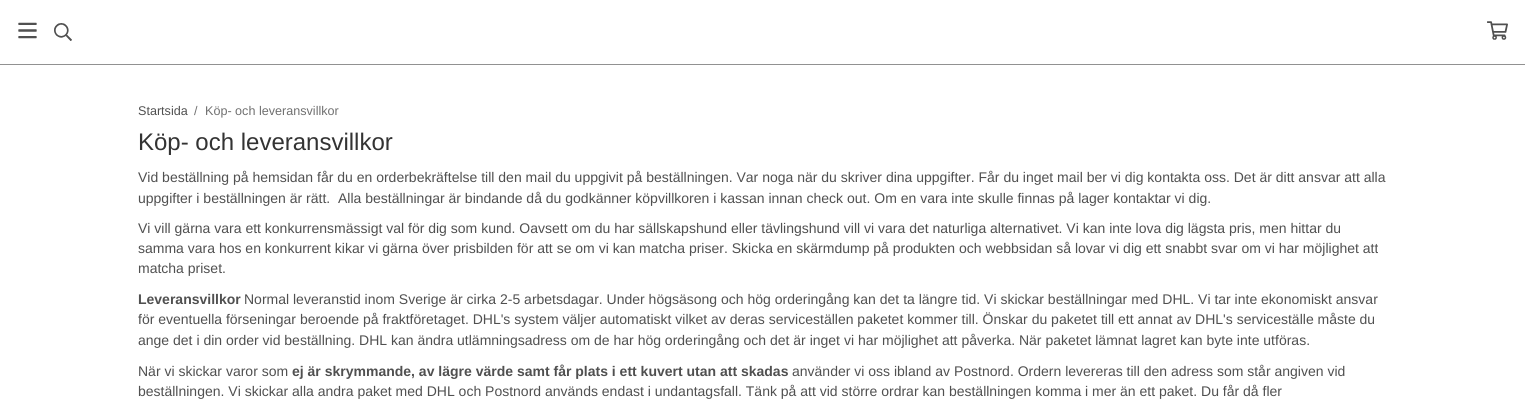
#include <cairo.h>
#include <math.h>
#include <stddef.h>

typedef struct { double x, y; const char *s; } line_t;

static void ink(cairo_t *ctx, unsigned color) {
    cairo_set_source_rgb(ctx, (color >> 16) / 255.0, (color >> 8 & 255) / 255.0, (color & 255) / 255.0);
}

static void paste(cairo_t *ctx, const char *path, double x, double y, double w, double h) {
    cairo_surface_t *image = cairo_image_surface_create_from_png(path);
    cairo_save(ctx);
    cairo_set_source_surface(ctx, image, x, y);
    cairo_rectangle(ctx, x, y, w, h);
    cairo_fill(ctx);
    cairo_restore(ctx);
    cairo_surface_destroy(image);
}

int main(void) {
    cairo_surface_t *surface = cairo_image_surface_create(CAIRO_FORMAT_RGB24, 1525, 402);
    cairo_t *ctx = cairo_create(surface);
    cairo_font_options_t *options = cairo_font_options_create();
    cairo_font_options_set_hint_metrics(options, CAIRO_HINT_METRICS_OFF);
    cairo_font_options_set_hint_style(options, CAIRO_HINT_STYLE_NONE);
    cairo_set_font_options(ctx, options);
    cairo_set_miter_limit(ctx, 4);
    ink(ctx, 0xFFFFFF);
    cairo_paint(ctx);
    ink(ctx, 0x919191);
    cairo_rectangle(ctx, 0, 64, 1525, 1);
    cairo_fill(ctx);
    paste(ctx, "media/1.png", 18, 22, 19, 17);
    paste(ctx, "media/2.png", 54, 23, 18, 18);
    paste(ctx, "media/3.png", 1487, 21, 21, 19);
    cairo_select_font_face(ctx, "Liberation Sans", CAIRO_FONT_SLANT_NORMAL, CAIRO_FONT_WEIGHT_NORMAL);
    cairo_set_font_size(ctx, 12.6);
    ink(ctx, 0x505050);
    cairo_move_to(ctx, 138, 115);
    cairo_show_text(ctx, "Startsida");
    ink(ctx, 0x707070);
    cairo_move_to(ctx, 194, 115);
    cairo_show_text(ctx, "/");
    cairo_move_to(ctx, 205, 115);
    cairo_show_text(ctx, "Köp- och leveransvillkor");
    cairo_set_font_size(ctx, 24);
    ink(ctx, 0x333333);
    cairo_move_to(ctx, 138, 150);
    cairo_show_text(ctx, "Köp- och leveransvillkor");
    cairo_set_font_size(ctx, 14);
    ink(ctx, 0x505050);
    {
        static const line_t items[] = {
            {138, 182, "Vid beställning på hemsidan får du en orderbekräftelse till den mail du uppgivit på beställningen. Var noga när du skriver dina uppgifter. Får du inget mail ber vi dig kontakta oss. Det är ditt ansvar att alla"},
            {138, 203, "uppgifter i beställningen är rätt.  Alla beställningar är bindande då du godkänner köpvillkoren i kassan innan check out. Om en vara inte skulle finnas på lager kontaktar vi dig."},
            {138, 233, "Vi vill gärna vara ett konkurrensmässigt val för dig som kund. Oavsett om du har sällskapshund eller tävlingshund vill vi vara det naturliga alternativet. Vi kan inte lova dig lägsta pris, men hittar du"},
            {138, 253, "samma vara hos en konkurrent kikar vi gärna över prisbilden för att se om vi kan matcha priser. Skicka en skärmdump på produkten och webbsidan så lovar vi dig ett snabbt svar om vi har möjlighet att"},
            {138, 273, "matcha priset."},
        };
        for (size_t i = 0; i < sizeof items / sizeof *items; i++) {
            cairo_move_to(ctx, items[i].x, items[i].y);
            cairo_show_text(ctx, items[i].s);
        }
    }
    cairo_select_font_face(ctx, "Liberation Sans", CAIRO_FONT_SLANT_NORMAL, CAIRO_FONT_WEIGHT_BOLD);
    cairo_move_to(ctx, 138, 304);
    cairo_show_text(ctx, "Leveransvillkor");
    cairo_select_font_face(ctx, "Liberation Sans", CAIRO_FONT_SLANT_NORMAL, CAIRO_FONT_WEIGHT_NORMAL);
    {
        static const line_t items[] = {
            {244, 304, "Normal leveranstid inom Sverige är cirka 2-5 arbetsdagar. Under högsäsong och hög orderingång kan det ta längre tid. Vi skickar beställningar med DHL. Vi tar inte ekonomiskt ansvar"},
            {138, 324, "för eventuella förseningar beroende på fraktföretaget. DHL's system väljer automatiskt vilket av deras serviceställen paketet kommer till. Önskar du paketet till ett annat av DHL's serviceställe måste du"},
            {138, 345, "ange det i din order vid beställning. DHL kan ändra utlämningsadress om de har hög orderingång och det är inget vi har möjlighet att påverka. När paketet lämnat lagret kan byte inte utföras."},
            {138, 376, "När vi skickar varor som"},
        };
        for (size_t i = 0; i < sizeof items / sizeof *items; i++) {
            cairo_move_to(ctx, items[i].x, items[i].y);
            cairo_show_text(ctx, items[i].s);
        }
    }
    cairo_select_font_face(ctx, "Liberation Sans", CAIRO_FONT_SLANT_NORMAL, CAIRO_FONT_WEIGHT_BOLD);
    cairo_move_to(ctx, 292, 376);
    cairo_show_text(ctx, "ej är skrymmande, av lägre värde samt får plats i ett kuvert utan att skadas");
    cairo_select_font_face(ctx, "Liberation Sans", CAIRO_FONT_SLANT_NORMAL, CAIRO_FONT_WEIGHT_NORMAL);
    cairo_move_to(ctx, 792, 376);
    cairo_show_text(ctx, "använder vi oss ibland av Postnord. Ordern levereras till den adress som står angiven vid");
    cairo_move_to(ctx, 138, 396);
    cairo_show_text(ctx, "beställningen. Vi skickar alla andra paket med DHL och Postnord används endast i undantagsfall. Tänk på att vid större ordrar kan beställningen komma i mer än ett paket. Du får då fler");
    cairo_surface_write_to_png(surface, "image.png");
    cairo_font_options_destroy(options);
    cairo_destroy(ctx);
    cairo_surface_destroy(surface);
    return 0;
}
